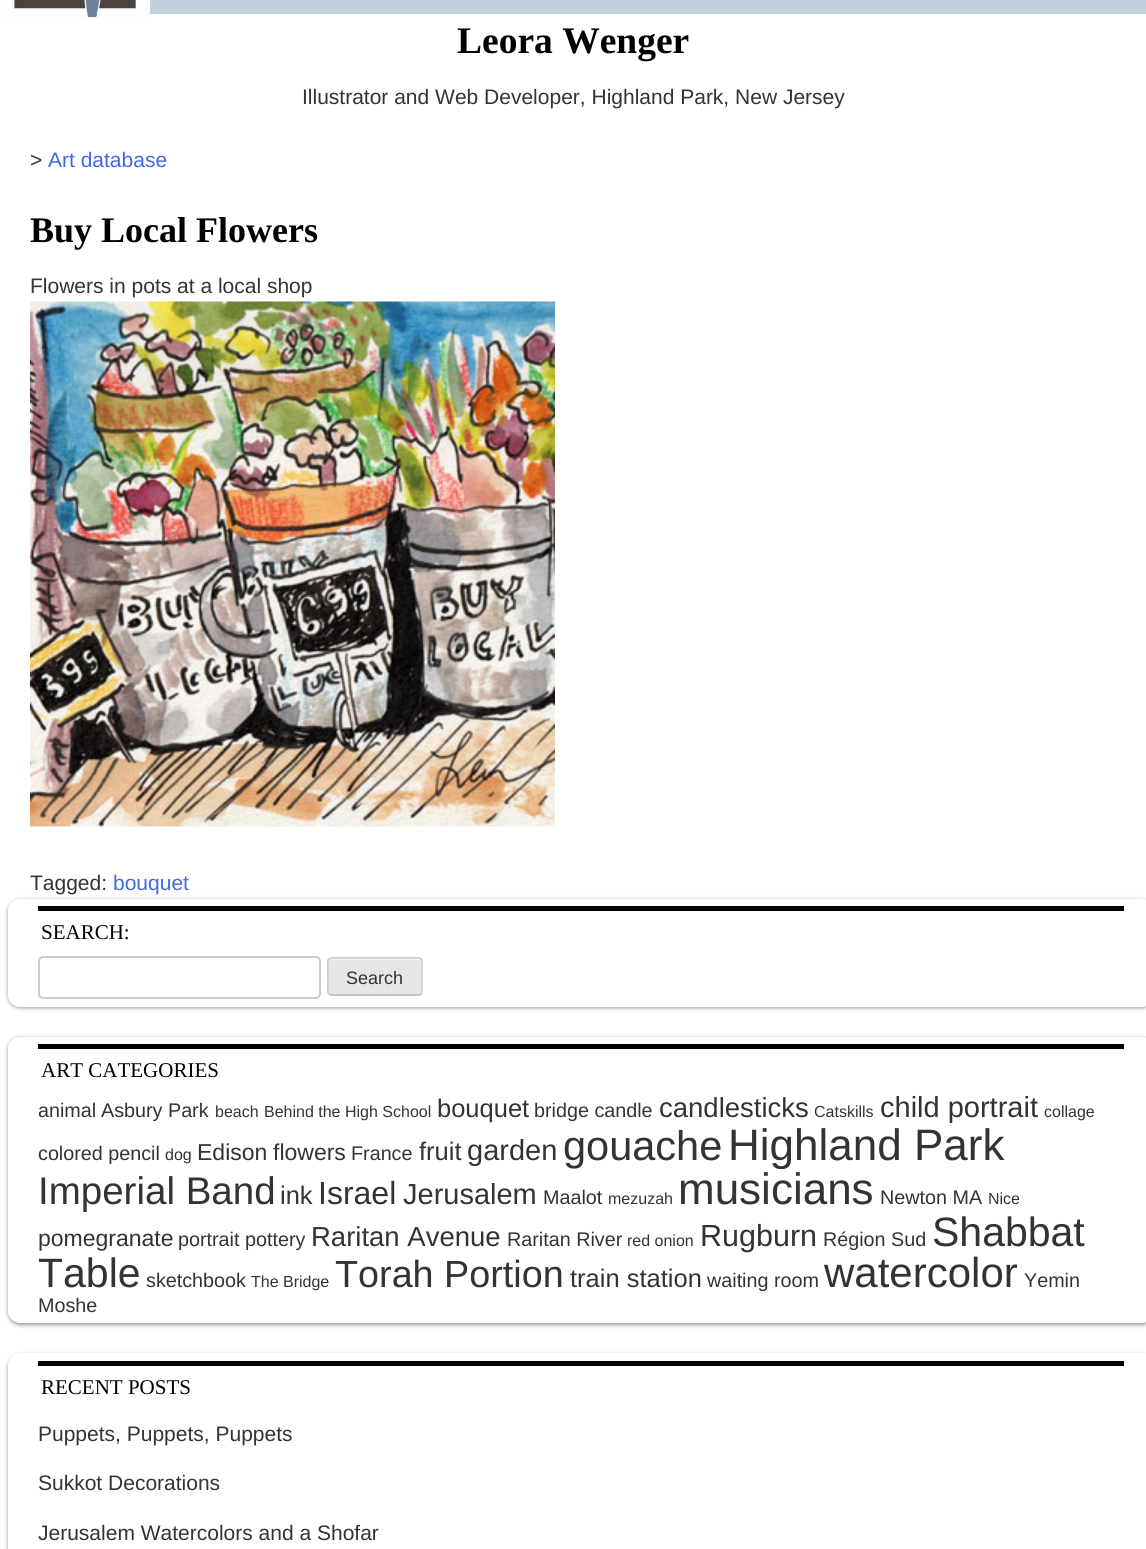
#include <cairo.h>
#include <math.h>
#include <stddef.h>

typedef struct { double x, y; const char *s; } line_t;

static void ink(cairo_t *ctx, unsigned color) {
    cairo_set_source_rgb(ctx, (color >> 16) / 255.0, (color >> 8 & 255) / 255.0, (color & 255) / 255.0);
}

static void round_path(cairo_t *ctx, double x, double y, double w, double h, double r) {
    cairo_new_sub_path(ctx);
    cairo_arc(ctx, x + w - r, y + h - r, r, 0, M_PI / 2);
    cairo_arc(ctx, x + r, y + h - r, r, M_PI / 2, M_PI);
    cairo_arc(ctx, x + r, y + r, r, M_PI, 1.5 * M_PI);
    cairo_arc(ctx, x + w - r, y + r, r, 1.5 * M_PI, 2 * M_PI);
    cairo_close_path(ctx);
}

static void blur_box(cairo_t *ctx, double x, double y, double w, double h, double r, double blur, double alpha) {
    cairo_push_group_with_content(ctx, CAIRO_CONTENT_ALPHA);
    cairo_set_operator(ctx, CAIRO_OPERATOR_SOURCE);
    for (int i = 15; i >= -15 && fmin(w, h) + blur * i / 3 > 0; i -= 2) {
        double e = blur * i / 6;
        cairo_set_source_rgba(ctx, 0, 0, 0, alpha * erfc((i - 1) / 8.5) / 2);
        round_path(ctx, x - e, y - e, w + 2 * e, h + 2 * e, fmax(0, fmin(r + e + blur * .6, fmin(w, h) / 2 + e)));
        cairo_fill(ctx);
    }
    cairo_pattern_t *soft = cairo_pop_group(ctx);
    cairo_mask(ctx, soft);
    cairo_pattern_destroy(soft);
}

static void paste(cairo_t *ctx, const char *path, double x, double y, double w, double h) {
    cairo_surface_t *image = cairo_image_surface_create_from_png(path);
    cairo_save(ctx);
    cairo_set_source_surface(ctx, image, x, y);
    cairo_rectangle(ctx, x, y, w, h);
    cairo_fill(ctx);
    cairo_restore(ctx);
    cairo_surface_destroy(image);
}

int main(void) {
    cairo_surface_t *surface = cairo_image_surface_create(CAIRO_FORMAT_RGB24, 1146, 1549);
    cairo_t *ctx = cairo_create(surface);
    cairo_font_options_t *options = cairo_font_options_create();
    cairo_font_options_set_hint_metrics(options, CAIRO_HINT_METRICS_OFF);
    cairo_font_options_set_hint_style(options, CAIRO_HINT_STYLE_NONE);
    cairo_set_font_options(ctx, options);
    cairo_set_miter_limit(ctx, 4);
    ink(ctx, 0xFFFFFF);
    cairo_paint(ctx);
    paste(ctx, "media/1.png", 0, 0, 150, 18);
    ink(ctx, 0xC2D0DD);
    cairo_rectangle(ctx, 150, 0, 996, 14);
    cairo_fill(ctx);
    cairo_select_font_face(ctx, "Liberation Serif", CAIRO_FONT_SLANT_NORMAL, CAIRO_FONT_WEIGHT_BOLD);
    cairo_set_font_size(ctx, 37.5);
    ink(ctx, 0x000000);
    cairo_move_to(ctx, 457, 53);
    cairo_show_text(ctx, "Leora Wenger");
    cairo_select_font_face(ctx, "Liberation Sans", CAIRO_FONT_SLANT_NORMAL, CAIRO_FONT_WEIGHT_NORMAL);
    cairo_set_font_size(ctx, 21);
    ink(ctx, 0x333333);
    cairo_move_to(ctx, 302, 104);
    cairo_show_text(ctx, "Illustrator and Web Developer, Highland Park, New Jersey");
    cairo_move_to(ctx, 30, 167);
    cairo_show_text(ctx, ">");
    ink(ctx, 0x4169E1);
    cairo_move_to(ctx, 48, 167);
    cairo_show_text(ctx, "Art database");
    cairo_select_font_face(ctx, "Liberation Serif", CAIRO_FONT_SLANT_NORMAL, CAIRO_FONT_WEIGHT_BOLD);
    cairo_set_font_size(ctx, 36);
    ink(ctx, 0x000000);
    cairo_move_to(ctx, 30, 242);
    cairo_show_text(ctx, "Buy Local Flowers");
    cairo_select_font_face(ctx, "Liberation Sans", CAIRO_FONT_SLANT_NORMAL, CAIRO_FONT_WEIGHT_NORMAL);
    cairo_set_font_size(ctx, 21);
    ink(ctx, 0x333333);
    cairo_move_to(ctx, 30, 293);
    cairo_show_text(ctx, "Flowers in pots at a local shop");
    paste(ctx, "media/2.png", 30, 301, 525, 526);
    cairo_move_to(ctx, 30, 890);
    cairo_show_text(ctx, "Tagged:");
    ink(ctx, 0x4169E1);
    cairo_move_to(ctx, 113, 890);
    cairo_show_text(ctx, "bouquet");
    ink(ctx, 0x000000);
    blur_box(ctx, 8, 900, 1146, 108, 12, 2, 0.4);
    ink(ctx, 0xFFFFFF);
    round_path(ctx, 8, 899, 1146, 108, 12);
    cairo_fill(ctx);
    ink(ctx, 0x000000);
    cairo_rectangle(ctx, 38, 906, 1086, 5);
    cairo_fill(ctx);
    cairo_select_font_face(ctx, "Liberation Serif", CAIRO_FONT_SLANT_NORMAL, CAIRO_FONT_WEIGHT_NORMAL);
    cairo_move_to(ctx, 41, 939);
    cairo_show_text(ctx, "SEARCH:");
    round_path(ctx, 39, 957, 281, 41, 4);
    ink(ctx, 0xCCCCCC);
    cairo_stroke(ctx);
    ink(ctx, 0xE6E6E6);
    round_path(ctx, 327, 957, 96, 39, 5);
    cairo_fill(ctx);
    ink(ctx, 0xF3F3F3);
    cairo_new_path(ctx);
    cairo_move_to(ctx, 332, 960);
    cairo_line_to(ctx, 418, 960);
    cairo_curve_to(ctx, 420, 960, 422, 961, 422, 963);
    cairo_curve_to(ctx, 422, 955, 408, 959, 404, 959);
    cairo_line_to(ctx, 331, 959);
    cairo_line_to(ctx, 329, 961);
    cairo_close_path(ctx);
    cairo_fill(ctx);
    cairo_new_path(ctx);
    cairo_move_to(ctx, 421, 994);
    cairo_line_to(ctx, 419, 995);
    cairo_line_to(ctx, 331, 995);
    cairo_line_to(ctx, 329, 994);
    ink(ctx, 0xBBBBBB);
    cairo_set_line_width(ctx, 1.5);
    cairo_stroke(ctx);
    cairo_new_path(ctx);
    cairo_move_to(ctx, 329, 994);
    cairo_curve_to(ctx, 327, 992.5, 328, 988.5, 328, 986.5);
    cairo_line_to(ctx, 328, 976.5);
    cairo_curve_to(ctx, 328, 955, 324, 958, 346, 958);
    cairo_line_to(ctx, 404, 958);
    cairo_curve_to(ctx, 426, 958, 422, 955, 422, 976.5);
    cairo_line_to(ctx, 422, 986.5);
    cairo_curve_to(ctx, 422, 988.5, 423, 992.5, 421, 994);
    ink(ctx, 0xCCCCCC);
    cairo_stroke(ctx);
    cairo_select_font_face(ctx, "Liberation Sans", CAIRO_FONT_SLANT_NORMAL, CAIRO_FONT_WEIGHT_NORMAL);
    cairo_set_font_size(ctx, 18);
    ink(ctx, 0x333333);
    cairo_move_to(ctx, 346, 984);
    cairo_show_text(ctx, "Search");
    ink(ctx, 0x000000);
    blur_box(ctx, 8, 1038, 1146, 287, 12, 2, 0.4);
    ink(ctx, 0xFFFFFF);
    round_path(ctx, 8, 1037, 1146, 286, 12);
    cairo_fill(ctx);
    ink(ctx, 0x000000);
    cairo_rectangle(ctx, 38, 1044, 1086, 5);
    cairo_fill(ctx);
    cairo_select_font_face(ctx, "Liberation Serif", CAIRO_FONT_SLANT_NORMAL, CAIRO_FONT_WEIGHT_NORMAL);
    cairo_set_font_size(ctx, 21);
    cairo_move_to(ctx, 41, 1077);
    cairo_show_text(ctx, "ART CATEGORIES");
    cairo_select_font_face(ctx, "Liberation Sans", CAIRO_FONT_SLANT_NORMAL, CAIRO_FONT_WEIGHT_NORMAL);
    cairo_set_font_size(ctx, 19.75);
    ink(ctx, 0x333333);
    cairo_move_to(ctx, 38, 1117);
    cairo_show_text(ctx, "animal");
    cairo_move_to(ctx, 101, 1117);
    cairo_show_text(ctx, "Asbury Park");
    cairo_set_font_size(ctx, 16);
    cairo_move_to(ctx, 215, 1117);
    cairo_show_text(ctx, "beach");
    cairo_move_to(ctx, 264, 1117);
    cairo_show_text(ctx, "Behind the High School");
    cairo_set_font_size(ctx, 25.5);
    cairo_move_to(ctx, 437, 1117);
    cairo_show_text(ctx, "bouquet");
    cairo_set_font_size(ctx, 19.75);
    cairo_move_to(ctx, 534, 1117);
    cairo_show_text(ctx, "bridge candle");
    cairo_set_font_size(ctx, 27.5);
    cairo_move_to(ctx, 659, 1117);
    cairo_show_text(ctx, "candlesticks");
    cairo_set_font_size(ctx, 16);
    cairo_move_to(ctx, 814, 1117);
    cairo_show_text(ctx, "Catskills");
    cairo_set_font_size(ctx, 29);
    cairo_move_to(ctx, 880, 1117);
    cairo_show_text(ctx, "child portrait");
    cairo_set_font_size(ctx, 16);
    cairo_move_to(ctx, 1044, 1117);
    cairo_show_text(ctx, "collage");
    cairo_set_font_size(ctx, 19.75);
    cairo_move_to(ctx, 38, 1160);
    cairo_show_text(ctx, "colored pencil");
    cairo_set_font_size(ctx, 16);
    cairo_move_to(ctx, 165, 1160);
    cairo_show_text(ctx, "dog");
    cairo_set_font_size(ctx, 23);
    cairo_move_to(ctx, 197, 1160);
    cairo_show_text(ctx, "Edison");
    cairo_move_to(ctx, 273, 1160);
    cairo_show_text(ctx, "flowers");
    cairo_set_font_size(ctx, 19.75);
    cairo_move_to(ctx, 351, 1160);
    cairo_show_text(ctx, "France");
    cairo_set_font_size(ctx, 25.5);
    cairo_move_to(ctx, 419, 1160);
    cairo_show_text(ctx, "fruit");
    cairo_set_font_size(ctx, 29);
    cairo_move_to(ctx, 467, 1160);
    cairo_show_text(ctx, "garden");
    cairo_set_font_size(ctx, 41.5);
    cairo_move_to(ctx, 563, 1160);
    cairo_show_text(ctx, "gouache");
    cairo_set_font_size(ctx, 44);
    cairo_move_to(ctx, 728, 1160);
    cairo_show_text(ctx, "Highland Park");
    cairo_set_font_size(ctx, 38.5);
    cairo_move_to(ctx, 38, 1204);
    cairo_show_text(ctx, "Imperial Band");
    cairo_set_font_size(ctx, 25.5);
    cairo_move_to(ctx, 280, 1204);
    cairo_show_text(ctx, "ink");
    cairo_set_font_size(ctx, 32);
    cairo_move_to(ctx, 318, 1204);
    cairo_show_text(ctx, "Israel");
    cairo_set_font_size(ctx, 29);
    cairo_move_to(ctx, 403, 1204);
    cairo_show_text(ctx, "Jerusalem");
    cairo_set_font_size(ctx, 19.75);
    cairo_move_to(ctx, 543, 1204);
    cairo_show_text(ctx, "Maalot");
    cairo_set_font_size(ctx, 16);
    cairo_move_to(ctx, 608, 1204);
    cairo_show_text(ctx, "mezuzah");
    cairo_set_font_size(ctx, 44);
    cairo_move_to(ctx, 678, 1204);
    cairo_show_text(ctx, "musicians");
    cairo_set_font_size(ctx, 19.75);
    cairo_move_to(ctx, 880, 1204);
    cairo_show_text(ctx, "Newton MA");
    cairo_set_font_size(ctx, 16);
    cairo_move_to(ctx, 988, 1204);
    cairo_show_text(ctx, "Nice");
    cairo_set_font_size(ctx, 23);
    cairo_move_to(ctx, 38, 1246);
    cairo_show_text(ctx, "pomegranate");
    cairo_set_font_size(ctx, 19.75);
    cairo_move_to(ctx, 178, 1246);
    cairo_show_text(ctx, "portrait pottery");
    cairo_set_font_size(ctx, 27.5);
    cairo_move_to(ctx, 311, 1246);
    cairo_show_text(ctx, "Raritan Avenue");
    cairo_set_font_size(ctx, 19.75);
    cairo_move_to(ctx, 507, 1246);
    cairo_show_text(ctx, "Raritan River");
    cairo_set_font_size(ctx, 16);
    cairo_move_to(ctx, 627, 1246);
    cairo_show_text(ctx, "red onion");
    cairo_set_font_size(ctx, 30.5);
    cairo_move_to(ctx, 700, 1246);
    cairo_show_text(ctx, "Rugburn");
    cairo_set_font_size(ctx, 19.75);
    cairo_move_to(ctx, 823, 1246);
    cairo_show_text(ctx, "Région Sud");
    cairo_set_font_size(ctx, 41);
    cairo_move_to(ctx, 932, 1246);
    cairo_show_text(ctx, "Shabbat");
    cairo_move_to(ctx, 38, 1287);
    cairo_show_text(ctx, "Table");
    cairo_set_font_size(ctx, 19.75);
    cairo_move_to(ctx, 146, 1287);
    cairo_show_text(ctx, "sketchbook");
    cairo_set_font_size(ctx, 16);
    cairo_move_to(ctx, 251, 1287);
    cairo_show_text(ctx, "The Bridge");
    cairo_set_font_size(ctx, 37.75);
    cairo_move_to(ctx, 335, 1287);
    cairo_show_text(ctx, "Torah Portion");
    cairo_set_font_size(ctx, 25.5);
    cairo_move_to(ctx, 570, 1287);
    cairo_show_text(ctx, "train station");
    cairo_set_font_size(ctx, 19.75);
    cairo_move_to(ctx, 707, 1287);
    cairo_show_text(ctx, "waiting room");
    cairo_set_font_size(ctx, 42);
    cairo_move_to(ctx, 824, 1287);
    cairo_show_text(ctx, "watercolor");
    cairo_set_font_size(ctx, 19.75);
    cairo_move_to(ctx, 1024, 1287);
    cairo_show_text(ctx, "Yemin");
    cairo_move_to(ctx, 38, 1312);
    cairo_show_text(ctx, "Moshe");
    ink(ctx, 0x000000);
    blur_box(ctx, 8, 1355, 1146, 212, 12, 2, 0.4);
    ink(ctx, 0xFFFFFF);
    round_path(ctx, 8, 1353, 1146, 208, 12);
    cairo_fill(ctx);
    ink(ctx, 0x000000);
    cairo_rectangle(ctx, 38, 1361, 1086, 5);
    cairo_fill(ctx);
    cairo_select_font_face(ctx, "Liberation Serif", CAIRO_FONT_SLANT_NORMAL, CAIRO_FONT_WEIGHT_NORMAL);
    cairo_set_font_size(ctx, 21);
    cairo_move_to(ctx, 41, 1394);
    cairo_show_text(ctx, "RECENT POSTS");
    cairo_select_font_face(ctx, "Liberation Sans", CAIRO_FONT_SLANT_NORMAL, CAIRO_FONT_WEIGHT_NORMAL);
    ink(ctx, 0x333333);
    {
        static const line_t items[] = {
            {38, 1441, "Puppets, Puppets, Puppets"},
            {38, 1490, "Sukkot Decorations"},
            {38, 1540, "Jerusalem Watercolors and a Shofar"},
        };
        for (size_t i = 0; i < sizeof items / sizeof *items; i++) {
            cairo_move_to(ctx, items[i].x, items[i].y);
            cairo_show_text(ctx, items[i].s);
        }
    }
    cairo_surface_write_to_png(surface, "image.png");
    cairo_font_options_destroy(options);
    cairo_destroy(ctx);
    cairo_surface_destroy(surface);
    return 0;
}
